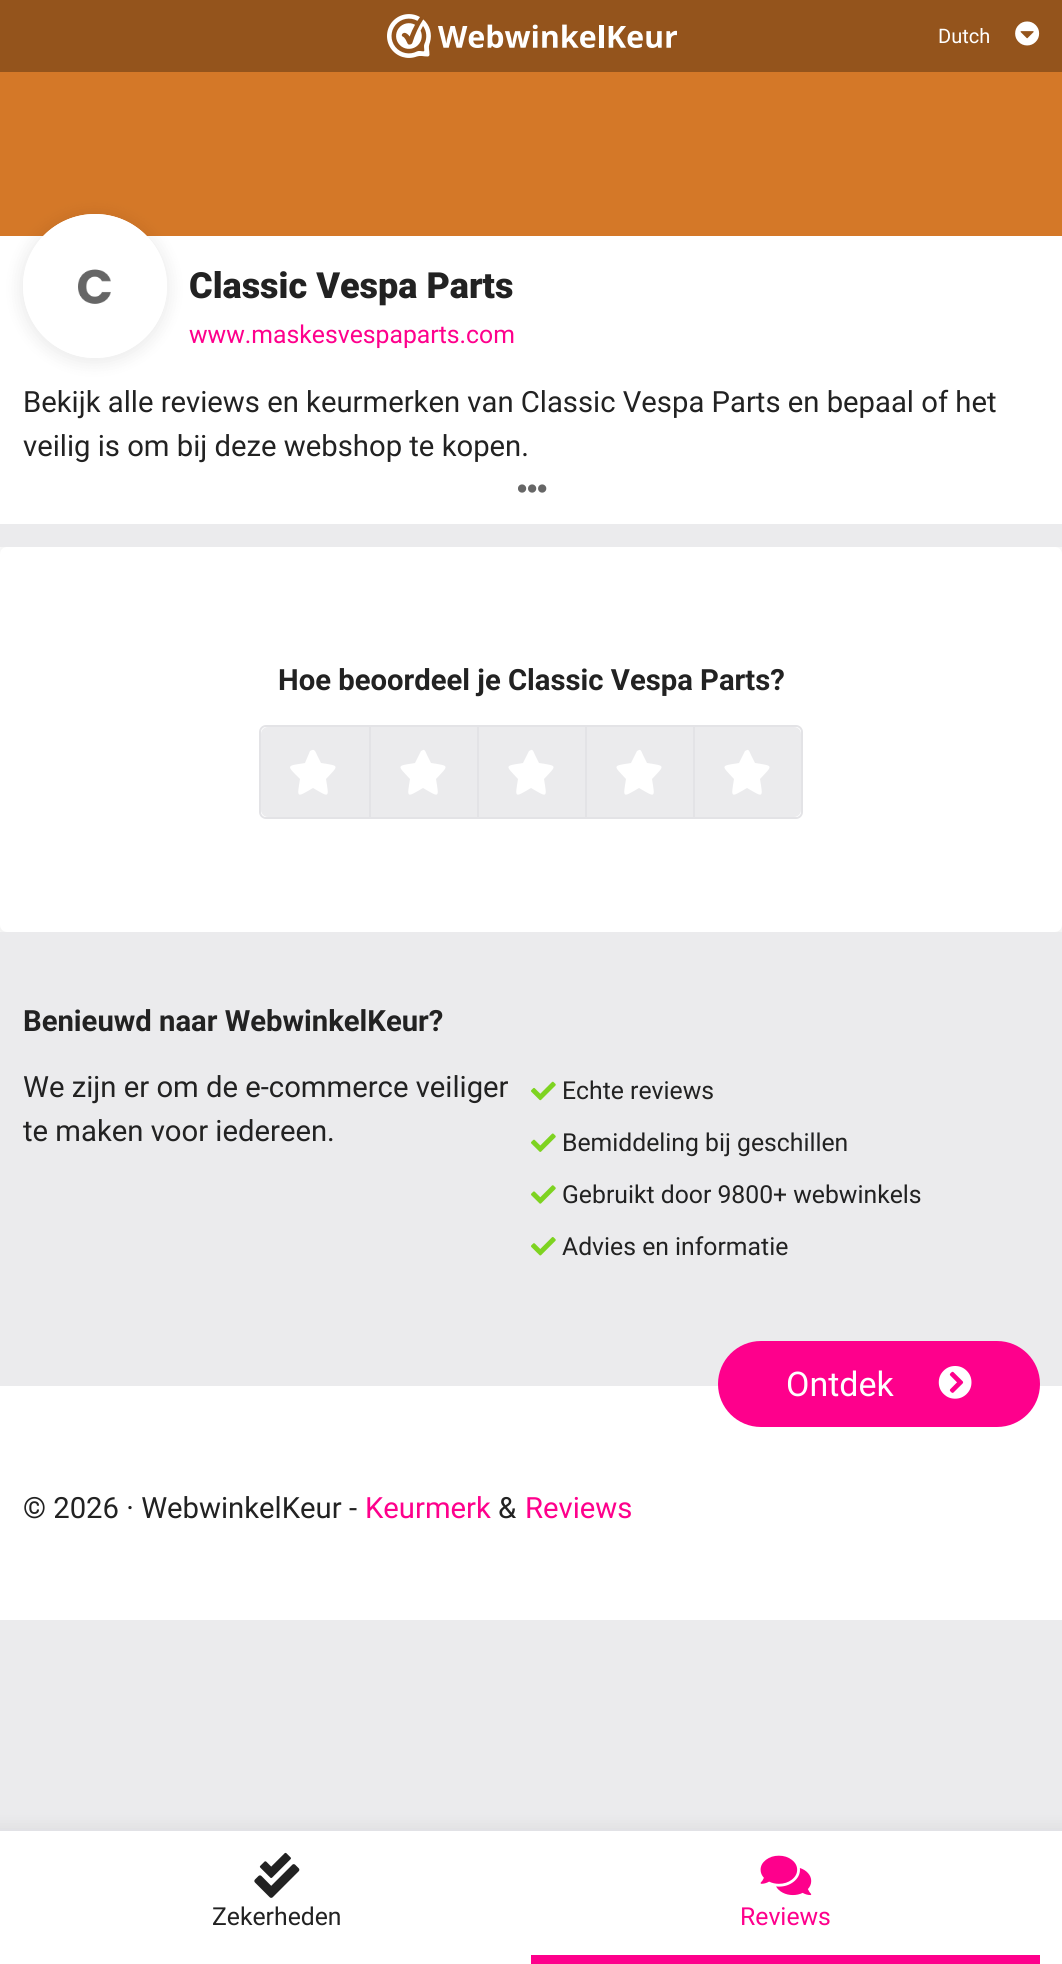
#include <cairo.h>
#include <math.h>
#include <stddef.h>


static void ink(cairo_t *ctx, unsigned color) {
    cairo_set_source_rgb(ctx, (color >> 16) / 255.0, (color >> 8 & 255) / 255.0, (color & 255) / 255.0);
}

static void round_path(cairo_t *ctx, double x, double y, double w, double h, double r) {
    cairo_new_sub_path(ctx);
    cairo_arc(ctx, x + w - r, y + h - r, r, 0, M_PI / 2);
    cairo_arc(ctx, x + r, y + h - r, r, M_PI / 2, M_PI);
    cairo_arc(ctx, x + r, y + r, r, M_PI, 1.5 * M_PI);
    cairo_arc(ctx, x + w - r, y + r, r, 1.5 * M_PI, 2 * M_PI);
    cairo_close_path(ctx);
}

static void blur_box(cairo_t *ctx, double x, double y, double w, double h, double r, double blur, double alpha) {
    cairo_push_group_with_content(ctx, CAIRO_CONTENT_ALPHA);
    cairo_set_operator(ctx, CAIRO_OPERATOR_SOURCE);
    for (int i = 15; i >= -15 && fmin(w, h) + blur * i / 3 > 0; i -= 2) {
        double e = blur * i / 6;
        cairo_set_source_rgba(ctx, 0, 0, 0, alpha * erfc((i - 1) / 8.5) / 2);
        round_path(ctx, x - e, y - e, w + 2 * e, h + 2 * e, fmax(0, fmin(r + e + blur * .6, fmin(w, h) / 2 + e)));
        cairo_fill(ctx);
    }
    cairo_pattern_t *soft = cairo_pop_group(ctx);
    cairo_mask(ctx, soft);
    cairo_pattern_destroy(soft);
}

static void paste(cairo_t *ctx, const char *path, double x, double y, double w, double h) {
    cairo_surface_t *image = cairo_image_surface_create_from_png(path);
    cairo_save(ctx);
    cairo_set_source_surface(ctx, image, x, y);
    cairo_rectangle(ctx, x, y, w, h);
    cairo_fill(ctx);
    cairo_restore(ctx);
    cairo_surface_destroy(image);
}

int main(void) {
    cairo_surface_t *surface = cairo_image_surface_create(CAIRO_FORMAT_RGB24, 1062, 1964);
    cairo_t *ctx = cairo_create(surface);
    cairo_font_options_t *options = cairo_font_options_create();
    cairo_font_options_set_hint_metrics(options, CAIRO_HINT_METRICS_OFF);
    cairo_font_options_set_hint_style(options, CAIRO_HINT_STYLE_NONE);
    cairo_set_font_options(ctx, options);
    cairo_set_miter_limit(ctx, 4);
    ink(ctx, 0xEBEBED);
    cairo_paint(ctx);
    ink(ctx, 0x94541C);
    cairo_rectangle(ctx, 0, 0, 1062, 72);
    cairo_fill(ctx);
    paste(ctx, "media/1.png", 387, 14, 290, 44);
    cairo_select_font_face(ctx, "Roboto", CAIRO_FONT_SLANT_NORMAL, CAIRO_FONT_WEIGHT_NORMAL);
    cairo_set_font_size(ctx, 20);
    ink(ctx, 0xFFFFFF);
    cairo_move_to(ctx, 938, 43);
    cairo_show_text(ctx, "Dutch");
    paste(ctx, "media/2.png", 1015, 21, 25, 25);
    ink(ctx, 0xD47828);
    cairo_rectangle(ctx, 0, 72, 1062, 164);
    cairo_fill(ctx);
    ink(ctx, 0xFFFFFF);
    cairo_rectangle(ctx, 0, 236, 1062, 288);
    cairo_fill(ctx);
    ink(ctx, 0x000000);
    blur_box(ctx, 18, 212, 153, 153, 76.5, 8, 0.07);
    ink(ctx, 0xFFFFFF);
    cairo_arc(ctx, 95, 286, 72, 0, 2 * M_PI);
    cairo_fill(ctx);
    paste(ctx, "media/3.png", 78, 269, 33, 35);
    cairo_arc(ctx, 95, 286, 69.5, 0, 2 * M_PI);
    cairo_set_line_width(ctx, 5);
    cairo_stroke(ctx);
    cairo_select_font_face(ctx, "Roboto Black", CAIRO_FONT_SLANT_NORMAL, CAIRO_FONT_WEIGHT_NORMAL);
    cairo_set_font_size(ctx, 36);
    ink(ctx, 0x222222);
    cairo_move_to(ctx, 189, 298);
    cairo_show_text(ctx, "Classic Vespa Parts");
    cairo_select_font_face(ctx, "Roboto", CAIRO_FONT_SLANT_NORMAL, CAIRO_FONT_WEIGHT_NORMAL);
    cairo_set_font_size(ctx, 24.75);
    ink(ctx, 0xFE008C);
    cairo_move_to(ctx, 189, 343);
    cairo_show_text(ctx, "www.maskesvespaparts.com");
    cairo_set_font_size(ctx, 29.25);
    ink(ctx, 0x222222);
    cairo_move_to(ctx, 23, 412);
    cairo_show_text(ctx, "Bekijk alle reviews en keurmerken van Classic Vespa Parts en bepaal of het");
    cairo_move_to(ctx, 23, 456);
    cairo_show_text(ctx, "veilig is om bij deze webshop te kopen.");
    paste(ctx, "media/4.png", 518, 484, 29, 9);
    ink(ctx, 0xFFFFFF);
    cairo_rectangle(ctx, 0, 547, 1062, 385);
    cairo_fill(ctx);
    cairo_save(ctx);
    cairo_rectangle(ctx, 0, 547, 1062, 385);
    cairo_clip(ctx);
    ink(ctx, 0x000000);
    blur_box(ctx, -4, 545, 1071, 393, 11, 8, 0.07);
    cairo_restore(ctx);
    round_path(ctx, 0, 547, 1062, 385, 7);
    cairo_fill(ctx);
    cairo_select_font_face(ctx, "Roboto", CAIRO_FONT_SLANT_NORMAL, CAIRO_FONT_WEIGHT_BOLD);
    ink(ctx, 0x222222);
    cairo_move_to(ctx, 278, 690);
    cairo_show_text(ctx, "Hoe beoordeel je Classic Vespa Parts?");
    round_path(ctx, 260, 726, 542, 92, 6);
    ink(ctx, 0xE3E3E6);
    cairo_set_line_width(ctx, 2);
    cairo_stroke(ctx);
    ink(ctx, 0xEBEBED);
    cairo_new_path(ctx);
    cairo_move_to(ctx, 268, 727);
    cairo_line_to(ctx, 369, 727);
    cairo_line_to(ctx, 369, 817);
    cairo_line_to(ctx, 268, 817);
    cairo_curve_to(ctx, 264, 817, 261, 814, 261, 810);
    cairo_line_to(ctx, 261, 734);
    cairo_curve_to(ctx, 261, 730, 264, 727, 268, 727);
    cairo_close_path(ctx);
    cairo_fill(ctx);
    ink(ctx, 0xFFFFFF);
    cairo_new_path(ctx);
    cairo_move_to(ctx, 310, 751);
    cairo_line_to(ctx, 312, 750);
    cairo_curve_to(ctx, 315, 749, 316, 753, 317, 755);
    cairo_line_to(ctx, 321, 763);
    cairo_curve_to(ctx, 340, 766, 339, 765, 326, 779);
    cairo_curve_to(ctx, 329, 798, 330, 798, 313, 788);
    cairo_curve_to(ctx, 296, 798, 297, 798, 300, 779);
    cairo_curve_to(ctx, 286, 765, 286, 766, 305, 763);
    cairo_close_path(ctx);
    cairo_fill(ctx);
    ink(ctx, 0xEBEBED);
    cairo_rectangle(ctx, 371, 727, 106, 90);
    cairo_fill(ctx);
    ink(ctx, 0xE3E3E6);
    cairo_rectangle(ctx, 369, 727, 2, 90);
    cairo_fill(ctx);
    ink(ctx, 0xFFFFFF);
    cairo_new_path(ctx);
    cairo_move_to(ctx, 421, 751);
    cairo_line_to(ctx, 423, 750);
    cairo_curve_to(ctx, 425, 749, 426, 753, 427, 755);
    cairo_line_to(ctx, 431, 763);
    cairo_curve_to(ctx, 450, 766, 449, 765, 436, 779);
    cairo_curve_to(ctx, 439, 798, 440, 798, 423, 788);
    cairo_curve_to(ctx, 406, 798, 407, 798, 410, 779);
    cairo_curve_to(ctx, 397, 765, 396, 766, 415, 763);
    cairo_close_path(ctx);
    cairo_fill(ctx);
    ink(ctx, 0xEBEBED);
    cairo_rectangle(ctx, 479, 727, 106, 90);
    cairo_fill(ctx);
    ink(ctx, 0xE3E3E6);
    cairo_rectangle(ctx, 477, 727, 2, 90);
    cairo_fill(ctx);
    ink(ctx, 0xFFFFFF);
    cairo_new_path(ctx);
    cairo_move_to(ctx, 529, 751);
    cairo_line_to(ctx, 531, 750);
    cairo_curve_to(ctx, 533, 749, 534, 753, 535, 755);
    cairo_line_to(ctx, 539, 763);
    cairo_curve_to(ctx, 558, 766, 557, 765, 544, 779);
    cairo_curve_to(ctx, 547, 798, 548, 798, 531, 788);
    cairo_curve_to(ctx, 514, 798, 515, 798, 518, 779);
    cairo_curve_to(ctx, 505, 765, 504, 766, 523, 763);
    cairo_close_path(ctx);
    cairo_fill(ctx);
    ink(ctx, 0xEBEBED);
    cairo_rectangle(ctx, 587, 727, 106, 90);
    cairo_fill(ctx);
    ink(ctx, 0xE3E3E6);
    cairo_rectangle(ctx, 585, 727, 2, 90);
    cairo_fill(ctx);
    ink(ctx, 0xFFFFFF);
    cairo_new_path(ctx);
    cairo_move_to(ctx, 637, 751);
    cairo_line_to(ctx, 639, 750);
    cairo_curve_to(ctx, 641, 749, 642, 753, 643, 755);
    cairo_line_to(ctx, 647, 763);
    cairo_curve_to(ctx, 666, 766, 665, 765, 652, 779);
    cairo_curve_to(ctx, 655, 798, 656, 798, 639, 788);
    cairo_curve_to(ctx, 622, 798, 623, 798, 626, 779);
    cairo_curve_to(ctx, 613, 765, 612, 766, 631, 763);
    cairo_close_path(ctx);
    cairo_fill(ctx);
    ink(ctx, 0xEBEBED);
    cairo_new_path(ctx);
    cairo_move_to(ctx, 693, 727);
    cairo_line_to(ctx, 794, 727);
    cairo_curve_to(ctx, 798, 727, 801, 730, 801, 734);
    cairo_line_to(ctx, 801, 810);
    cairo_curve_to(ctx, 801, 814, 798, 817, 794, 817);
    cairo_line_to(ctx, 693, 817);
    cairo_close_path(ctx);
    cairo_fill(ctx);
    ink(ctx, 0xE3E3E6);
    cairo_rectangle(ctx, 693, 727, 2, 90);
    cairo_fill(ctx);
    ink(ctx, 0xFFFFFF);
    cairo_new_path(ctx);
    cairo_move_to(ctx, 745, 751);
    cairo_line_to(ctx, 747, 750);
    cairo_curve_to(ctx, 749, 749, 750, 753, 751, 755);
    cairo_line_to(ctx, 755, 763);
    cairo_curve_to(ctx, 774, 766, 773, 765, 760, 779);
    cairo_curve_to(ctx, 763, 798, 764, 798, 747, 788);
    cairo_curve_to(ctx, 730, 798, 731, 798, 734, 779);
    cairo_curve_to(ctx, 721, 765, 720, 766, 739, 763);
    cairo_close_path(ctx);
    cairo_fill(ctx);
    ink(ctx, 0x222222);
    cairo_move_to(ctx, 23, 1031);
    cairo_show_text(ctx, "Benieuwd naar WebwinkelKeur?");
    cairo_select_font_face(ctx, "Roboto", CAIRO_FONT_SLANT_NORMAL, CAIRO_FONT_WEIGHT_NORMAL);
    cairo_move_to(ctx, 23, 1097);
    cairo_show_text(ctx, "We zijn er om de e-commerce veiliger");
    cairo_move_to(ctx, 23, 1141);
    cairo_show_text(ctx, "te maken voor iedereen.");
    paste(ctx, "media/5.png", 531, 1081, 25, 20);
    cairo_set_font_size(ctx, 24.75);
    cairo_move_to(ctx, 562, 1099);
    cairo_show_text(ctx, "Echte reviews");
    paste(ctx, "media/6.png", 531, 1133, 25, 19);
    cairo_move_to(ctx, 562, 1151);
    cairo_show_text(ctx, "Bemiddeling bij geschillen");
    paste(ctx, "media/7.png", 531, 1185, 25, 19);
    cairo_move_to(ctx, 562, 1203);
    cairo_show_text(ctx, "Gebruikt door 9800+ webwinkels");
    paste(ctx, "media/8.png", 531, 1237, 25, 19);
    cairo_move_to(ctx, 562, 1255);
    cairo_show_text(ctx, "Advies en informatie");
    ink(ctx, 0xFFFFFF);
    cairo_rectangle(ctx, 0, 1386, 1062, 234);
    cairo_fill(ctx);
    ink(ctx, 0xFE008C);
    round_path(ctx, 718, 1341, 322, 86, 43);
    cairo_fill(ctx);
    cairo_set_font_size(ctx, 34);
    ink(ctx, 0xFFFFFF);
    cairo_move_to(ctx, 786, 1396);
    cairo_show_text(ctx, "Ontdek");
    paste(ctx, "media/9.png", 938, 1366, 34, 33);
    cairo_set_font_size(ctx, 29.25);
    ink(ctx, 0x222222);
    cairo_move_to(ctx, 23, 1518);
    cairo_show_text(ctx, "© 2026 · WebwinkelKeur -");
    ink(ctx, 0xFE008C);
    cairo_move_to(ctx, 365, 1518);
    cairo_show_text(ctx, "Keurmerk");
    ink(ctx, 0x222222);
    cairo_move_to(ctx, 498, 1518);
    cairo_show_text(ctx, "&");
    ink(ctx, 0xFE008C);
    cairo_move_to(ctx, 525, 1518);
    cairo_show_text(ctx, "Reviews");
    ink(ctx, 0x000000);
    blur_box(ctx, -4, 1827, 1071, 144, 0, 8, 0.07);
    ink(ctx, 0xFFFFFF);
    cairo_rectangle(ctx, 0, 1831, 1062, 133);
    cairo_fill(ctx);
    ink(ctx, 0xE2E2E6);
    cairo_rectangle(ctx, 0, 1829, 1062, 2);
    cairo_fill(ctx);
    paste(ctx, "media/10.png", 254, 1852, 46, 46);
    cairo_set_font_size(ctx, 24.75);
    ink(ctx, 0x222222);
    cairo_move_to(ctx, 212, 1925);
    cairo_show_text(ctx, "Zekerheden");
    ink(ctx, 0xFE008C);
    cairo_rectangle(ctx, 531, 1955, 509, 9);
    cairo_fill(ctx);
    paste(ctx, "media/11.png", 760, 1855, 52, 41);
    cairo_move_to(ctx, 740, 1925);
    cairo_show_text(ctx, "Reviews");
    cairo_surface_write_to_png(surface, "image.png");
    cairo_font_options_destroy(options);
    cairo_destroy(ctx);
    cairo_surface_destroy(surface);
    return 0;
}
